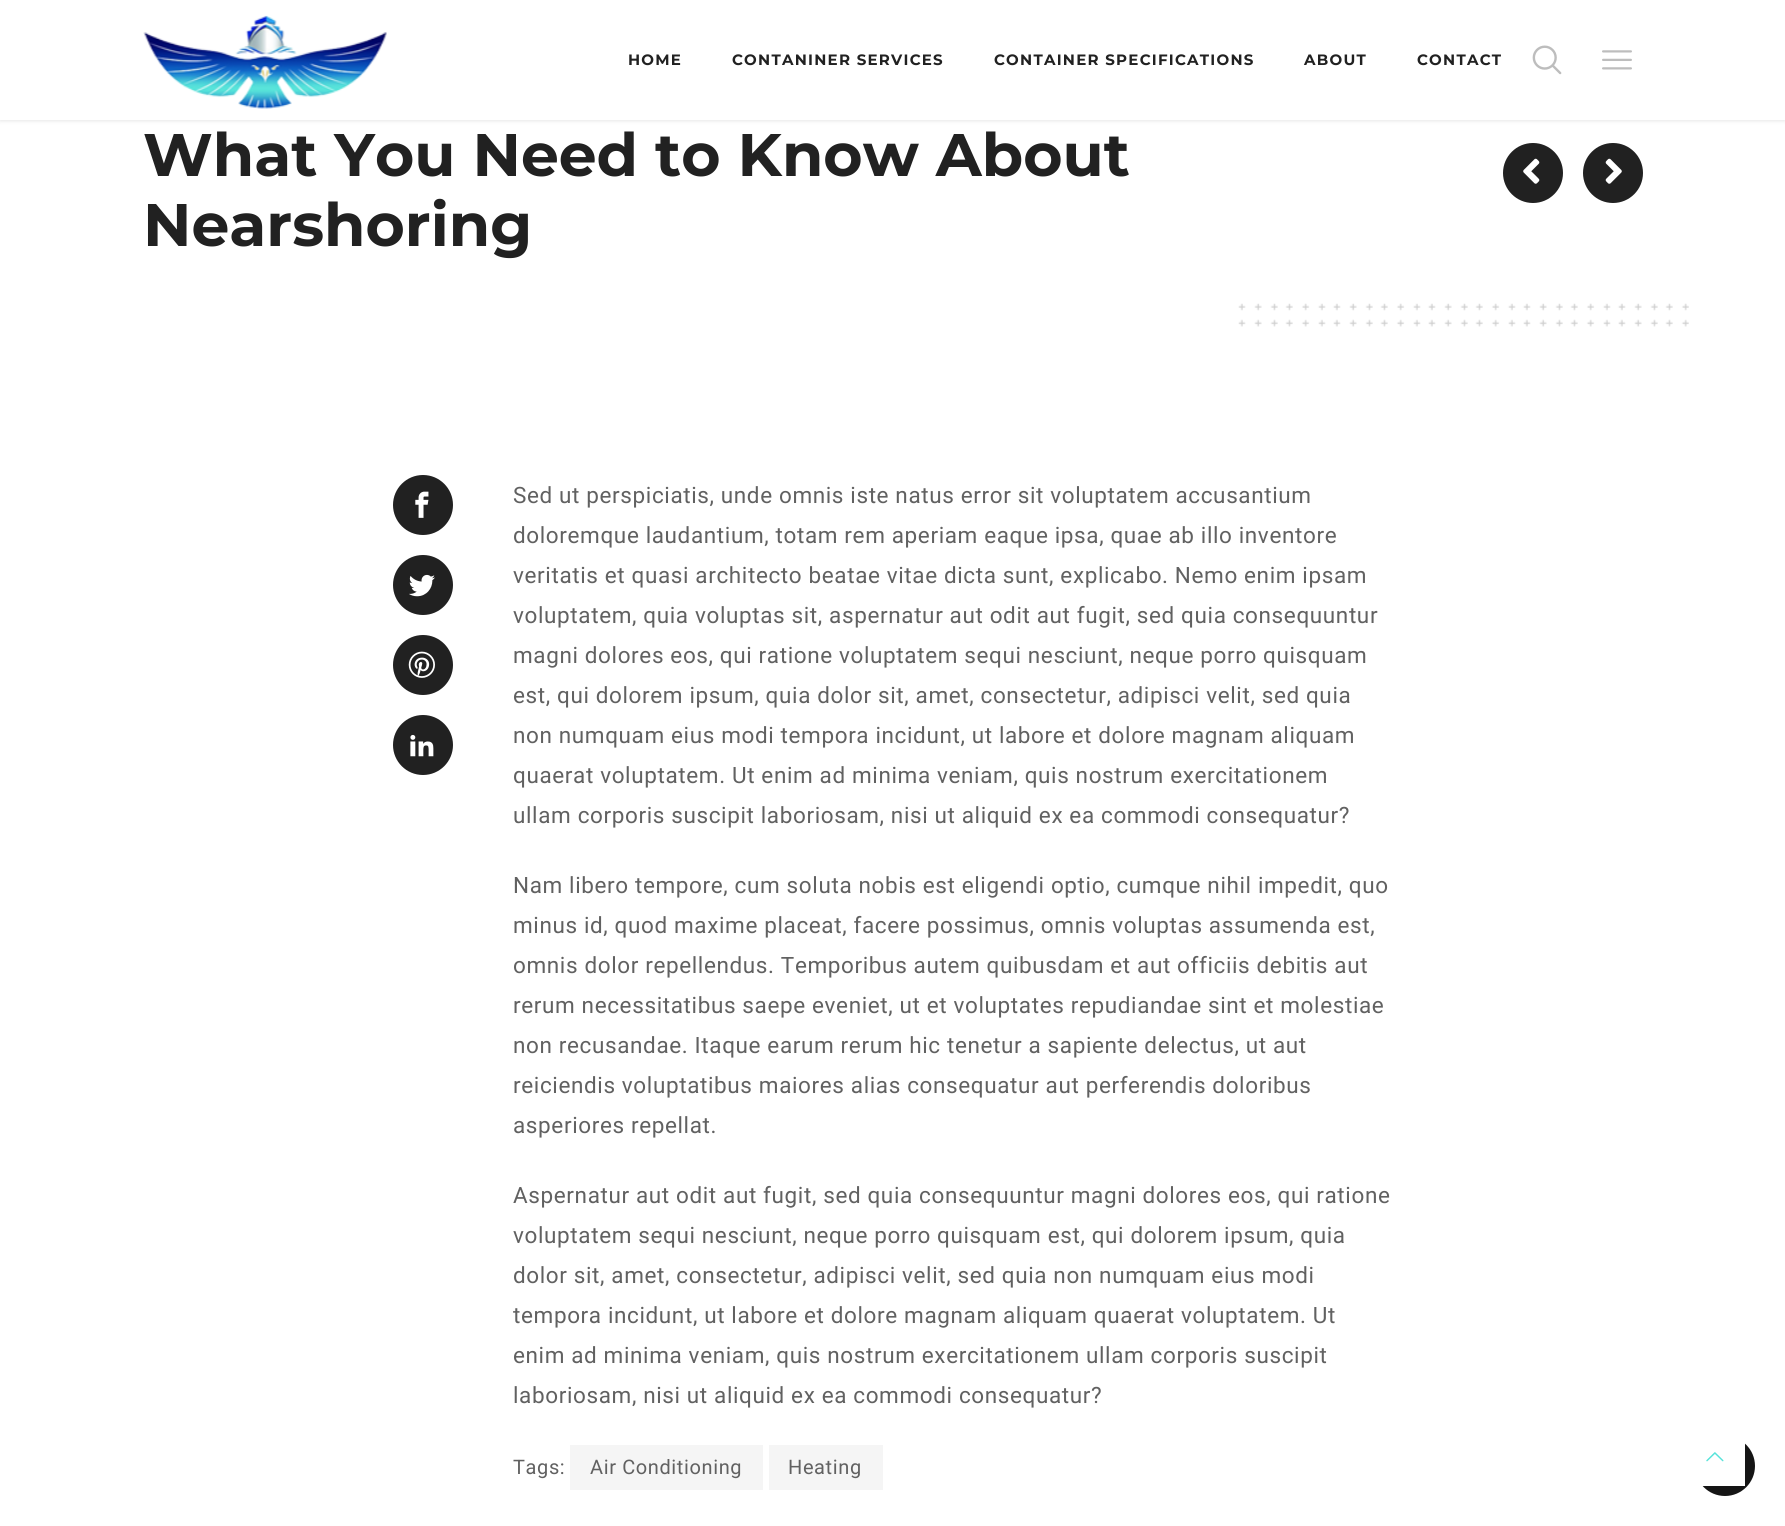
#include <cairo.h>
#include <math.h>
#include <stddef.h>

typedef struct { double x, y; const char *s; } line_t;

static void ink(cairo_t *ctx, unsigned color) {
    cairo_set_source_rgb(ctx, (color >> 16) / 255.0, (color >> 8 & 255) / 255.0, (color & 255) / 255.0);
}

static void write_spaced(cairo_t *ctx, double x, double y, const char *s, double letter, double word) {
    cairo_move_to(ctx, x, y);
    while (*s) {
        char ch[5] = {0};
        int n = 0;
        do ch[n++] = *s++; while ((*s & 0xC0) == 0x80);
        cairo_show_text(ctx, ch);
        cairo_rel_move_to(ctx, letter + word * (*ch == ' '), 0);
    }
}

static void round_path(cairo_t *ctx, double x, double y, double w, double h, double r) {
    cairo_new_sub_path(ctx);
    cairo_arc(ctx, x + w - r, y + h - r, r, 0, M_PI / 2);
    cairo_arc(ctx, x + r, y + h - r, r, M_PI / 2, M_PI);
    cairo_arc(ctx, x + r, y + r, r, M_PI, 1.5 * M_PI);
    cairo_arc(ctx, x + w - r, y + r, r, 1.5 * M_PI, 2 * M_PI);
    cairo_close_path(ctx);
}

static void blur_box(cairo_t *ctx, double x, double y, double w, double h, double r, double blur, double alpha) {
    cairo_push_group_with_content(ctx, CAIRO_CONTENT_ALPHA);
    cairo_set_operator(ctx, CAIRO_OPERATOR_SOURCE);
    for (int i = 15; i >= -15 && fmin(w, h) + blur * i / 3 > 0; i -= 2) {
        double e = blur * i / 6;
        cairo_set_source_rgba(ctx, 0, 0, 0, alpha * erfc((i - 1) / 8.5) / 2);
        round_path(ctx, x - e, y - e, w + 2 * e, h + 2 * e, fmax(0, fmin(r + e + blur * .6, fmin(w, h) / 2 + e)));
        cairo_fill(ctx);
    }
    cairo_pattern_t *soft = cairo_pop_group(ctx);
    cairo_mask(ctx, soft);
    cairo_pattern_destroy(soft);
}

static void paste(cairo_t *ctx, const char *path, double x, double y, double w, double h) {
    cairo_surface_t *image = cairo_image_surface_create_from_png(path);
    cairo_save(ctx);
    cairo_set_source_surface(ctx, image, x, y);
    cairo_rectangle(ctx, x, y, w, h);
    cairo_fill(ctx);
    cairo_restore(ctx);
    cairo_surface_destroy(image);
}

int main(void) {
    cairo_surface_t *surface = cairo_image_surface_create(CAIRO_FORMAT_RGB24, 1785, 1526);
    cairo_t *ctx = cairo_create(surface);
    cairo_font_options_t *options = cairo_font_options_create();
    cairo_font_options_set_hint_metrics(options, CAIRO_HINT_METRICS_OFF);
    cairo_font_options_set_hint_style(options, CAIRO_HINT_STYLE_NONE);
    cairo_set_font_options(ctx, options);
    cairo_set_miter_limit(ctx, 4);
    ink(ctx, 0xFFFFFF);
    cairo_paint(ctx);
    ink(ctx, 0x000000);
    blur_box(ctx, 0, 1, 1785, 120, 0, 2, 0.1);
    ink(ctx, 0xFFFFFF);
    cairo_rectangle(ctx, 0, 0, 1785, 120);
    cairo_fill(ctx);
    paste(ctx, "media/1.png", 143, 15, 244, 94);
    cairo_select_font_face(ctx, "Montserrat", CAIRO_FONT_SLANT_NORMAL, CAIRO_FONT_WEIGHT_BOLD);
    cairo_set_font_size(ctx, 15);
    ink(ctx, 0x212121);
    {
        static const line_t items[] = {
            {628, 65, "HOME"},
            {732, 65, "CONTANINER SERVICES"},
            {994, 65, "CONTAINER SPECIFICATIONS"},
            {1304, 65, "ABOUT"},
            {1417, 65, "CONTACT"},
        };
        for (size_t i = 0; i < sizeof items / sizeof *items; i++) {
            write_spaced(ctx, items[i].x, items[i].y, items[i].s, 1.25, 0);
        }
    }
    cairo_select_font_face(ctx, "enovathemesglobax", CAIRO_FONT_SLANT_NORMAL, CAIRO_FONT_WEIGHT_NORMAL);
    cairo_set_font_size(ctx, 30);
    ink(ctx, 0xBDBDBD);
    write_spaced(ctx, 1532, 73, "꤁", 0.62, 0);
    write_spaced(ctx, 1602, 73, "꤀", 0.62, 0);
    cairo_select_font_face(ctx, "Montserrat", CAIRO_FONT_SLANT_NORMAL, CAIRO_FONT_WEIGHT_BOLD);
    cairo_set_font_size(ctx, 60);
    ink(ctx, 0x212121);
    cairo_move_to(ctx, 143, 176);
    cairo_show_text(ctx, "What You Need to Know About");
    cairo_move_to(ctx, 143, 246);
    cairo_show_text(ctx, "Nearshoring");
    cairo_new_path(ctx);
    cairo_arc(ctx, 1533, 173, 30, 0, 2 * M_PI);
    cairo_fill(ctx);
    paste(ctx, "media/2.png", 1523, 158, 17, 26);
    cairo_arc(ctx, 1613, 173, 30, 0, 2 * M_PI);
    cairo_fill(ctx);
    paste(ctx, "media/3.png", 1605, 158, 17, 26);
    paste(ctx, "media/4.png", 1238, 303, 451, 24);
    cairo_arc(ctx, 423, 505, 30, 0, 2 * M_PI);
    cairo_fill(ctx);
    paste(ctx, "media/5.png", 415, 491, 14, 27);
    cairo_arc(ctx, 423, 585, 30, 0, 2 * M_PI);
    cairo_fill(ctx);
    paste(ctx, "media/6.png", 409, 574, 26, 23);
    cairo_arc(ctx, 423, 665, 30, 0, 2 * M_PI);
    cairo_fill(ctx);
    paste(ctx, "media/7.png", 408, 651, 27, 27);
    cairo_arc(ctx, 423, 745, 30, 0, 2 * M_PI);
    cairo_fill(ctx);
    paste(ctx, "media/8.png", 410, 734, 24, 23);
    cairo_select_font_face(ctx, "Roboto", CAIRO_FONT_SLANT_NORMAL, CAIRO_FONT_WEIGHT_NORMAL);
    cairo_set_font_size(ctx, 22.5);
    ink(ctx, 0x616161);
    {
        static const line_t items[] = {
            {513, 503, "Sed ut perspiciatis, unde omnis iste natus error sit voluptatem accusantium"},
            {513, 543, "doloremque laudantium, totam rem aperiam eaque ipsa, quae ab illo inventore"},
            {513, 583, "veritatis et quasi architecto beatae vitae dicta sunt, explicabo. Nemo enim ipsam"},
            {513, 623, "voluptatem, quia voluptas sit, aspernatur aut odit aut fugit, sed quia consequuntur"},
            {513, 663, "magni dolores eos, qui ratione voluptatem sequi nesciunt, neque porro quisquam"},
            {513, 703, "est, qui dolorem ipsum, quia dolor sit, amet, consectetur, adipisci velit, sed quia"},
            {513, 743, "non numquam eius modi tempora incidunt, ut labore et dolore magnam aliquam"},
            {513, 783, "quaerat voluptatem. Ut enim ad minima veniam, quis nostrum exercitationem"},
            {513, 823, "ullam corporis suscipit laboriosam, nisi ut aliquid ex ea commodi consequatur?"},
            {513, 893, "Nam libero tempore, cum soluta nobis est eligendi optio, cumque nihil impedit, quo"},
            {513, 933, "minus id, quod maxime placeat, facere possimus, omnis voluptas assumenda est,"},
            {513, 973, "omnis dolor repellendus. Temporibus autem quibusdam et aut officiis debitis aut"},
            {513, 1013, "rerum necessitatibus saepe eveniet, ut et voluptates repudiandae sint et molestiae"},
            {513, 1053, "non recusandae. Itaque earum rerum hic tenetur a sapiente delectus, ut aut"},
            {513, 1093, "reiciendis voluptatibus maiores alias consequatur aut perferendis doloribus"},
            {513, 1133, "asperiores repellat."},
            {513, 1203, "Aspernatur aut odit aut fugit, sed quia consequuntur magni dolores eos, qui ratione"},
            {513, 1243, "voluptatem sequi nesciunt, neque porro quisquam est, qui dolorem ipsum, quia"},
            {513, 1283, "dolor sit, amet, consectetur, adipisci velit, sed quia non numquam eius modi"},
            {513, 1323, "tempora incidunt, ut labore et dolore magnam aliquam quaerat voluptatem. Ut"},
            {513, 1363, "enim ad minima veniam, quis nostrum exercitationem ullam corporis suscipit"},
            {513, 1403, "laboriosam, nisi ut aliquid ex ea commodi consequatur?"},
        };
        for (size_t i = 0; i < sizeof items / sizeof *items; i++) {
            write_spaced(ctx, items[i].x, items[i].y, items[i].s, 0.62, 0);
        }
    }
    cairo_set_font_size(ctx, 20);
    write_spaced(ctx, 513, 1474, "Tags:", 0.62, 0);
    ink(ctx, 0xF5F5F5);
    cairo_rectangle(ctx, 570, 1445, 193, 45);
    cairo_fill(ctx);
    ink(ctx, 0x616161);
    write_spaced(ctx, 590, 1474, "Air Conditioning", 0.62, 0);
    ink(ctx, 0xF5F5F5);
    cairo_rectangle(ctx, 769, 1445, 114, 45);
    cairo_fill(ctx);
    ink(ctx, 0x616161);
    write_spaced(ctx, 788, 1474, "Heating", 0.62, 0);
    ink(ctx, 0x151515);
    cairo_new_path(ctx);
    cairo_arc(ctx, 1725, 1466, 30, 0, 2 * M_PI);
    cairo_fill(ctx);
    ink(ctx, 0xFFFFFF);
    cairo_rectangle(ctx, 1695, 1436, 50, 50);
    cairo_fill(ctx);
    paste(ctx, "media/9.png", 1706, 1452, 18, 10);
    cairo_surface_write_to_png(surface, "image.png");
    cairo_font_options_destroy(options);
    cairo_destroy(ctx);
    cairo_surface_destroy(surface);
    return 0;
}
